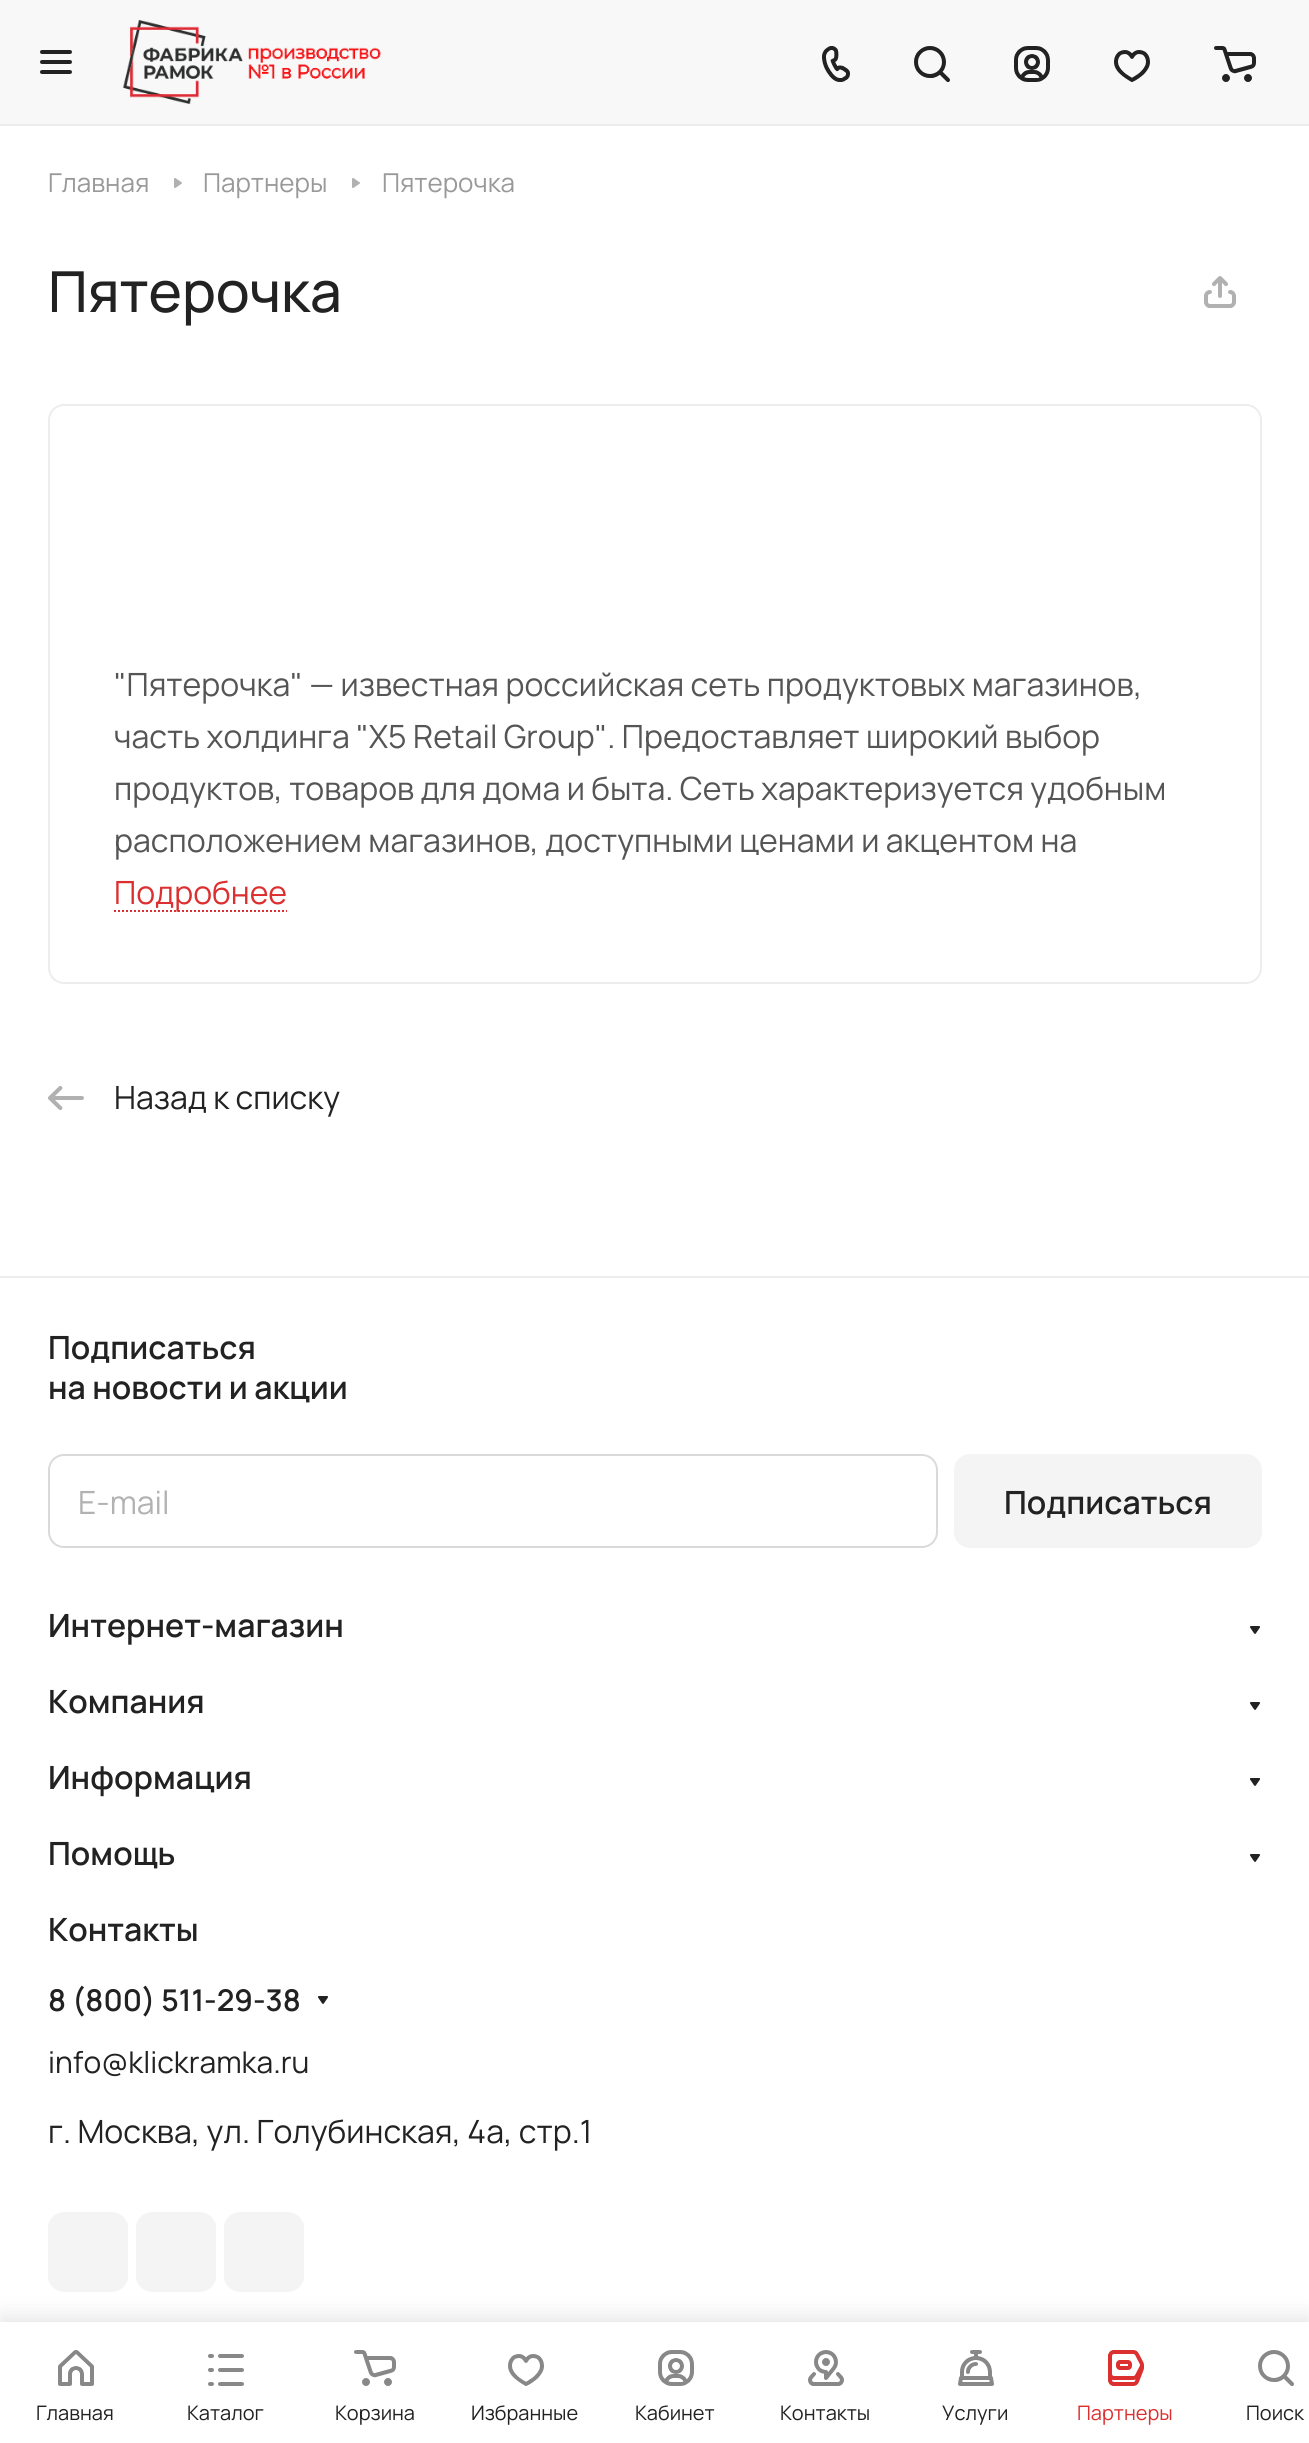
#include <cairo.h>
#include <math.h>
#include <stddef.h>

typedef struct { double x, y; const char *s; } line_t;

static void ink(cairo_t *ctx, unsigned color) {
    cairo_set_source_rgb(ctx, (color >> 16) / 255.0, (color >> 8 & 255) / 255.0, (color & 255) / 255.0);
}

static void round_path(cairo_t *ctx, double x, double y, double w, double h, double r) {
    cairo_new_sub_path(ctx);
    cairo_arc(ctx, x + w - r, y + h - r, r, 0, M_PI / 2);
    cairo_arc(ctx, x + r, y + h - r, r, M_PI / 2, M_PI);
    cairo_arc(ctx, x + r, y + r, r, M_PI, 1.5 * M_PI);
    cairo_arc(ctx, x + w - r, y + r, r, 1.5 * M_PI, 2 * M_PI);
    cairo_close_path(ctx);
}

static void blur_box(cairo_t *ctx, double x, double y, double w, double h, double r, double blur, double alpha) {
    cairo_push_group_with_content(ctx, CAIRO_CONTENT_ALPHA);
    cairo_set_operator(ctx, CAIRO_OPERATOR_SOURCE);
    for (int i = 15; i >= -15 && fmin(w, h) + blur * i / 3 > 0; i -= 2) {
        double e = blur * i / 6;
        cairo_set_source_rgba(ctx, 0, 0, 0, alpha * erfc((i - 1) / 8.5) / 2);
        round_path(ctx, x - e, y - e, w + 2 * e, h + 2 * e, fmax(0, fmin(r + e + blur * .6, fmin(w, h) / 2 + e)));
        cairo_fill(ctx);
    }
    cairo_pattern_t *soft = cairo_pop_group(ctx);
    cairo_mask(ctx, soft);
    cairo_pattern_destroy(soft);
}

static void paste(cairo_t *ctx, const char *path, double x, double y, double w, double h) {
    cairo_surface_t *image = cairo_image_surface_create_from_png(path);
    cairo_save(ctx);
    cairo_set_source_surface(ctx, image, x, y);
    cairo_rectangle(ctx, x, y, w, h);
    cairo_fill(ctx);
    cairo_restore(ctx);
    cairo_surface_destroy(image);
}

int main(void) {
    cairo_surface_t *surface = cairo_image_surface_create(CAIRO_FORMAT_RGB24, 1309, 2443);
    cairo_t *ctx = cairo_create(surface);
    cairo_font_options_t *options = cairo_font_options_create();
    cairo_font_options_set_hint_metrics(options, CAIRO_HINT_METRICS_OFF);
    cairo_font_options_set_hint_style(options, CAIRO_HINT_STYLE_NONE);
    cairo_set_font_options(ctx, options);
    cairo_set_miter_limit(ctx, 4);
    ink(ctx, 0xFFFFFF);
    cairo_paint(ctx);
    ink(ctx, 0xEDEDED);
    cairo_rectangle(ctx, 0, 124, 1309, 2);
    cairo_fill(ctx);
    ink(ctx, 0xF8F8F8);
    cairo_rectangle(ctx, 0, 0, 1309, 124);
    cairo_fill(ctx);
    paste(ctx, "media/1.png", 40, 50, 32, 24);
    paste(ctx, "media/2.png", 122, 20, 259, 84);
    paste(ctx, "media/3.png", 822, 46, 28, 36);
    paste(ctx, "media/4.png", 914, 46, 36, 36);
    paste(ctx, "media/5.png", 1014, 46, 36, 36);
    paste(ctx, "media/6.png", 1114, 50, 36, 32);
    paste(ctx, "media/7.png", 1214, 46, 42, 36);
    cairo_select_font_face(ctx, "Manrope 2 ExtraLight", CAIRO_FONT_SLANT_NORMAL, CAIRO_FONT_WEIGHT_NORMAL);
    cairo_set_font_size(ctx, 26);
    ink(ctx, 0x999999);
    cairo_move_to(ctx, 48, 192);
    cairo_show_text(ctx, "Главная");
    paste(ctx, "media/8.png", 174, 178, 8, 10);
    cairo_move_to(ctx, 203, 192);
    cairo_show_text(ctx, "Партнеры");
    paste(ctx, "media/8.png", 352, 178, 8, 10);
    cairo_move_to(ctx, 382, 192);
    cairo_show_text(ctx, "Пятерочка");
    cairo_select_font_face(ctx, "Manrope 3 ExtraLight", CAIRO_FONT_SLANT_NORMAL, CAIRO_FONT_WEIGHT_NORMAL);
    cairo_set_font_size(ctx, 56.5);
    ink(ctx, 0x222222);
    cairo_move_to(ctx, 48, 312);
    cairo_show_text(ctx, "Пятерочка");
    paste(ctx, "media/9.png", 1204, 276, 32, 32);
    round_path(ctx, 49, 405, 1212, 578, 15);
    ink(ctx, 0xEDEDED);
    cairo_stroke(ctx);
    cairo_select_font_face(ctx, "Manrope 2 ExtraLight", CAIRO_FONT_SLANT_NORMAL, CAIRO_FONT_WEIGHT_NORMAL);
    cairo_set_font_size(ctx, 32);
    ink(ctx, 0x555555);
    {
        static const line_t items[] = {
            {114, 696, "\"Пятерочка\" — известная российская сеть продуктовых магазинов,"},
            {114, 748, "часть холдинга \"X5 Retail Group\". Предоставляет широкий выбор"},
            {114, 800, "продуктов, товаров для дома и быта. Сеть характеризуется удобным"},
            {114, 852, "расположением магазинов, доступными ценами и акцентом на"},
        };
        for (size_t i = 0; i < sizeof items / sizeof *items; i++) {
            cairo_move_to(ctx, items[i].x, items[i].y);
            cairo_show_text(ctx, items[i].s);
        }
    }
    cairo_new_path(ctx);
    cairo_move_to(ctx, 114, 911);
    cairo_line_to(ctx, 287, 911);
    ink(ctx, 0xDC2F2F);
    cairo_set_dash(ctx, (double[]){2, 2}, 2, 0);
    cairo_stroke(ctx);
    cairo_move_to(ctx, 114, 904);
    cairo_show_text(ctx, "Подробнее");
    paste(ctx, "media/10.png", 48, 1086, 36, 24);
    ink(ctx, 0x222222);
    cairo_move_to(ctx, 114, 1109);
    cairo_show_text(ctx, "Назад к списку");
    ink(ctx, 0xEDEDED);
    cairo_rectangle(ctx, 0, 1276, 1309, 2);
    cairo_fill(ctx);
    cairo_select_font_face(ctx, "Manrope ExtraLight", CAIRO_FONT_SLANT_NORMAL, CAIRO_FONT_WEIGHT_NORMAL);
    ink(ctx, 0x222222);
    cairo_move_to(ctx, 48, 1359);
    cairo_show_text(ctx, "Подписаться");
    cairo_move_to(ctx, 48, 1399);
    cairo_show_text(ctx, "на новости и акции");
    round_path(ctx, 49, 1455, 888, 92, 15);
    ink(ctx, 0xDADADA);
    cairo_set_dash(ctx, NULL, 0, 0);
    cairo_stroke(ctx);
    cairo_select_font_face(ctx, "Manrope 2 ExtraLight", CAIRO_FONT_SLANT_NORMAL, CAIRO_FONT_WEIGHT_NORMAL);
    ink(ctx, 0xB2B2B2);
    cairo_move_to(ctx, 78, 1514);
    cairo_show_text(ctx, "E-mail");
    ink(ctx, 0xF4F4F4);
    round_path(ctx, 955, 1455, 306, 92, 15);
    cairo_fill_preserve(ctx);
    cairo_stroke(ctx);
    cairo_select_font_face(ctx, "Manrope ExtraLight", CAIRO_FONT_SLANT_NORMAL, CAIRO_FONT_WEIGHT_NORMAL);
    ink(ctx, 0x222222);
    cairo_move_to(ctx, 1004, 1514);
    cairo_show_text(ctx, "Подписаться");
    cairo_move_to(ctx, 48, 1637);
    cairo_show_text(ctx, "Интернет-магазин");
    paste(ctx, "media/11.png", 1250, 1626, 10, 8);
    cairo_move_to(ctx, 48, 1713);
    cairo_show_text(ctx, "Компания");
    paste(ctx, "media/11.png", 1250, 1702, 10, 8);
    cairo_move_to(ctx, 48, 1789);
    cairo_show_text(ctx, "Информация");
    paste(ctx, "media/12.png", 1250, 1778, 10, 8);
    cairo_move_to(ctx, 48, 1865);
    cairo_show_text(ctx, "Помощь");
    paste(ctx, "media/11.png", 1250, 1854, 10, 8);
    cairo_move_to(ctx, 48, 1941);
    cairo_show_text(ctx, "Контакты");
    cairo_set_font_size(ctx, 30);
    cairo_move_to(ctx, 48, 2011);
    cairo_show_text(ctx, "8 (800) 511-29-38");
    paste(ctx, "media/11.png", 318, 1996, 10, 8);
    cairo_select_font_face(ctx, "Manrope 2 ExtraLight", CAIRO_FONT_SLANT_NORMAL, CAIRO_FONT_WEIGHT_NORMAL);
    cairo_move_to(ctx, 48, 2073);
    cairo_show_text(ctx, "info@klickramka.ru");
    cairo_set_font_size(ctx, 32);
    cairo_move_to(ctx, 48, 2143);
    cairo_show_text(ctx, "г. Москва, ул. Голубинская, 4а, стр.1");
    ink(ctx, 0xF4F4F4);
    round_path(ctx, 48, 2212, 80, 80, 16);
    cairo_fill(ctx);
    round_path(ctx, 136, 2212, 80, 80, 16);
    cairo_fill(ctx);
    round_path(ctx, 224, 2212, 80, 80, 16);
    cairo_fill(ctx);
    ink(ctx, 0x000000);
    blur_box(ctx, 0, 2316, 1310, 122, 0, 10, 0.1);
    ink(ctx, 0xFFFFFF);
    cairo_rectangle(ctx, 0, 2322, 1309, 121);
    cairo_fill(ctx);
    paste(ctx, "media/13.png", 58, 2350, 36, 36);
    cairo_set_font_size(ctx, 20);
    ink(ctx, 0x222222);
    cairo_move_to(ctx, 36, 2420);
    cairo_show_text(ctx, "Главная");
    paste(ctx, "media/14.png", 208, 2354, 36, 32);
    cairo_move_to(ctx, 187, 2420);
    cairo_show_text(ctx, "Каталог");
    paste(ctx, "media/15.png", 354, 2350, 42, 36);
    cairo_move_to(ctx, 335, 2420);
    cairo_show_text(ctx, "Корзина");
    paste(ctx, "media/16.png", 508, 2354, 36, 32);
    cairo_move_to(ctx, 471, 2420);
    cairo_show_text(ctx, "Избранные");
    paste(ctx, "media/17.png", 658, 2350, 36, 36);
    cairo_move_to(ctx, 635, 2420);
    cairo_show_text(ctx, "Кабинет");
    paste(ctx, "media/18.png", 808, 2350, 36, 36);
    cairo_move_to(ctx, 780, 2420);
    cairo_show_text(ctx, "Контакты");
    paste(ctx, "media/19.png", 958, 2350, 36, 36);
    cairo_move_to(ctx, 942, 2420);
    cairo_show_text(ctx, "Услуги");
    paste(ctx, "media/20.png", 1108, 2350, 36, 36);
    ink(ctx, 0xDC2F2F);
    cairo_move_to(ctx, 1077, 2420);
    cairo_show_text(ctx, "Партнеры");
    paste(ctx, "media/21.png", 1258, 2350, 36, 36);
    ink(ctx, 0x222222);
    cairo_move_to(ctx, 1246, 2420);
    cairo_show_text(ctx, "Поиск");
    cairo_surface_write_to_png(surface, "image.png");
    cairo_font_options_destroy(options);
    cairo_destroy(ctx);
    cairo_surface_destroy(surface);
    return 0;
}
